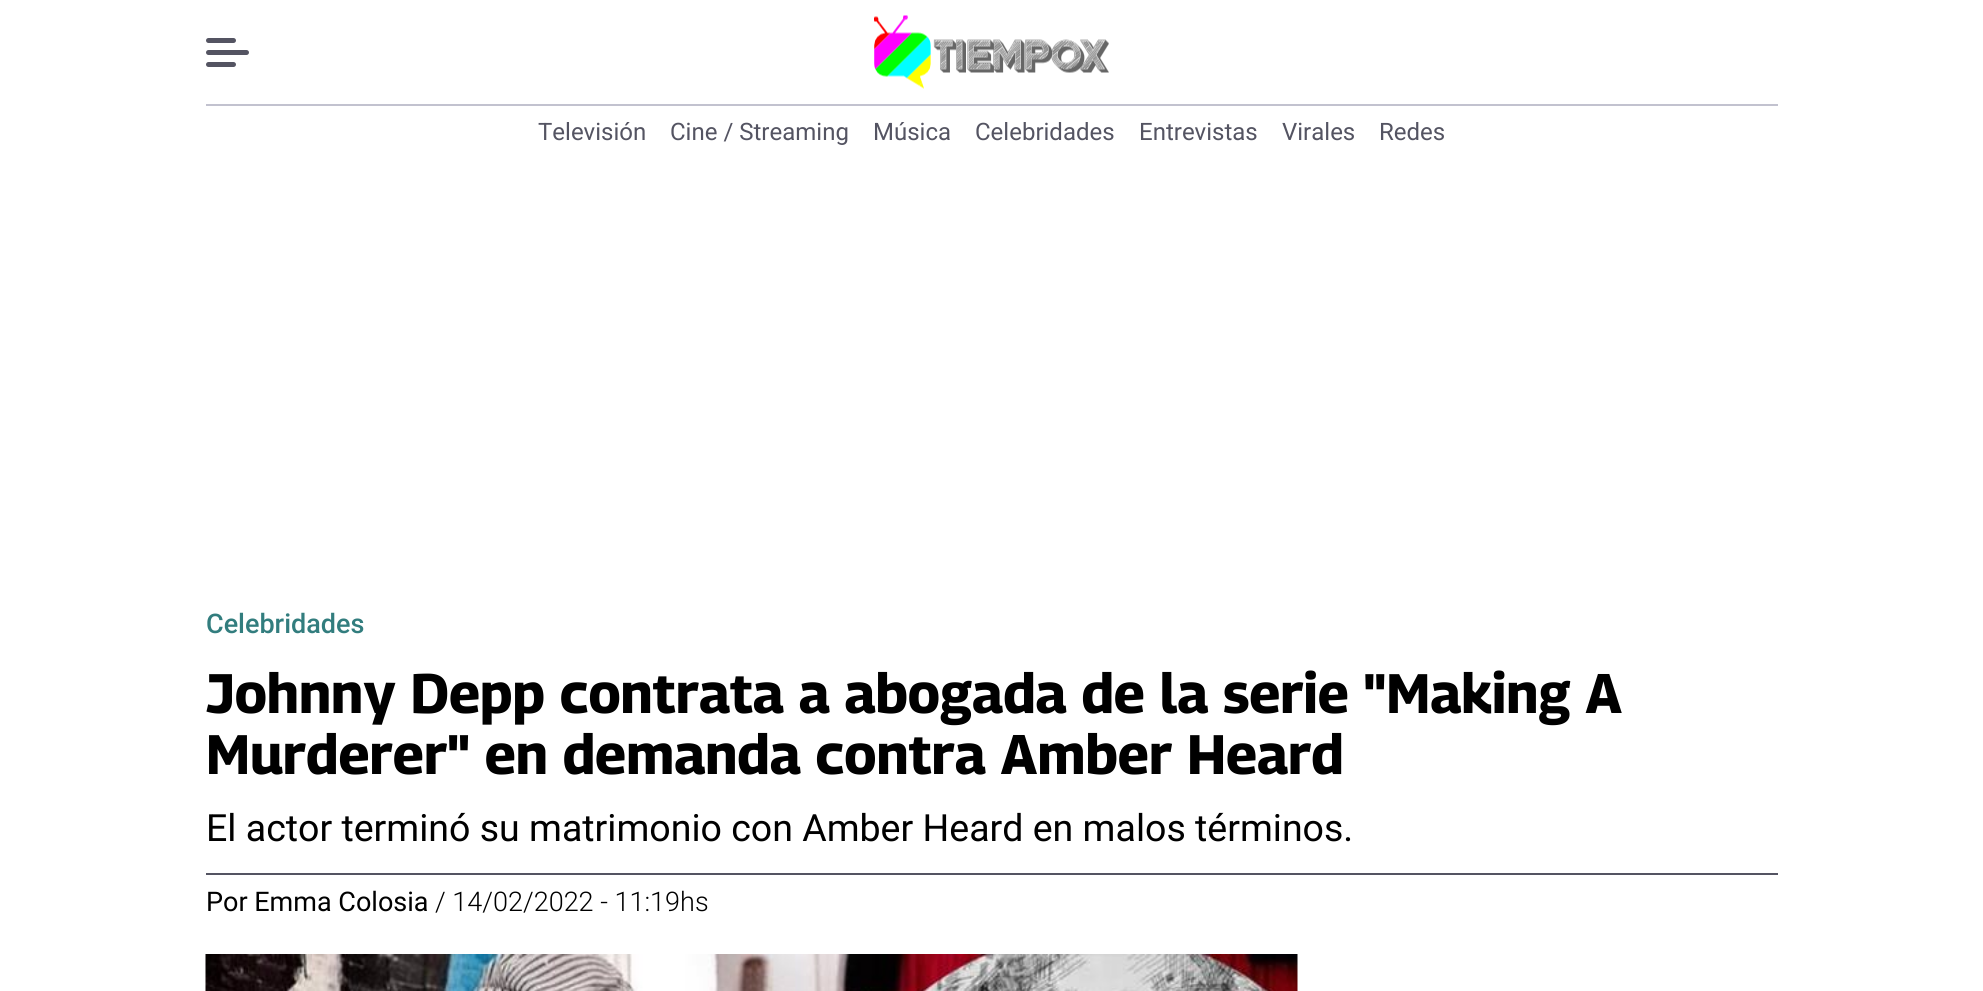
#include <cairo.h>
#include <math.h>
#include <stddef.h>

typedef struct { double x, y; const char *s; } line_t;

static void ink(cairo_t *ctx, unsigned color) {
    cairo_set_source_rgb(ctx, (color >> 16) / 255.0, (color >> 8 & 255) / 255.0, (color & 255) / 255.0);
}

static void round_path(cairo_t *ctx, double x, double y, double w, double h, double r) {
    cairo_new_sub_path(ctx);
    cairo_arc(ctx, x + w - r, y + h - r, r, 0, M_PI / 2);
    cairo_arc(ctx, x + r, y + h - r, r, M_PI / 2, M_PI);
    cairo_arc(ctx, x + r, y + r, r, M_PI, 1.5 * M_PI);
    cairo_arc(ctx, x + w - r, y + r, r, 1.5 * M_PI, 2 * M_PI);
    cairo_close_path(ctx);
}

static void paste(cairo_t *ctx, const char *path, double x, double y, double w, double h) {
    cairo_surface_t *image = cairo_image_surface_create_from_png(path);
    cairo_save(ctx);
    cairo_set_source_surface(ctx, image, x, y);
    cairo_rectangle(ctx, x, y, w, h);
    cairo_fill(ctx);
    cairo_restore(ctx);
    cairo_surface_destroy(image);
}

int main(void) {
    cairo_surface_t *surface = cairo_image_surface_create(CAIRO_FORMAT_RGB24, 1983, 991);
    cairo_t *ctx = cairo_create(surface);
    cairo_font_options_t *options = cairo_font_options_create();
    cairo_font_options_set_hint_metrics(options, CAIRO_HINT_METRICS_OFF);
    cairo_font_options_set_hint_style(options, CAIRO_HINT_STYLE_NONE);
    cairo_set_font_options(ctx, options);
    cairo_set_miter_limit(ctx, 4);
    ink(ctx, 0xFFFFFF);
    cairo_paint(ctx);
    ink(ctx, 0xC2C2CF);
    cairo_rectangle(ctx, 206, 104, 1572, 2);
    cairo_fill(ctx);
    ink(ctx, 0x545462);
    round_path(ctx, 206, 38, 30, 5, 2.5);
    cairo_fill(ctx);
    round_path(ctx, 206, 50, 43, 5, 2.5);
    cairo_fill(ctx);
    round_path(ctx, 206, 62, 30, 5, 2.5);
    cairo_fill(ctx);
    paste(ctx, "media/1.png", 874, 15, 235, 74);
    cairo_select_font_face(ctx, "Roboto", CAIRO_FONT_SLANT_NORMAL, CAIRO_FONT_WEIGHT_NORMAL);
    cairo_set_font_size(ctx, 24);
    {
        static const line_t items[] = {
            {538, 140, "Televisión"},
            {670, 140, "Cine / Streaming"},
            {873, 140, "Música"},
            {975, 140, "Celebridades"},
            {1139, 140, "Entrevistas"},
            {1282, 140, "Virales"},
            {1379, 140, "Redes"},
        };
        for (size_t i = 0; i < sizeof items / sizeof *items; i++) {
            cairo_move_to(ctx, items[i].x, items[i].y);
            cairo_show_text(ctx, items[i].s);
        }
    }
    cairo_select_font_face(ctx, "Roboto Medium", CAIRO_FONT_SLANT_NORMAL, CAIRO_FONT_WEIGHT_NORMAL);
    cairo_set_font_size(ctx, 27);
    ink(ctx, 0x327D7E);
    cairo_move_to(ctx, 206, 633);
    cairo_show_text(ctx, "Celebridades");
    cairo_select_font_face(ctx, "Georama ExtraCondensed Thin", CAIRO_FONT_SLANT_NORMAL, CAIRO_FONT_WEIGHT_BOLD);
    cairo_set_font_size(ctx, 55.5);
    ink(ctx, 0x000000);
    cairo_move_to(ctx, 206, 713);
    cairo_show_text(ctx, "Johnny Depp contrata a abogada de la serie \"Making A");
    cairo_move_to(ctx, 206, 774);
    cairo_show_text(ctx, "Murderer\" en demanda contra Amber Heard");
    cairo_select_font_face(ctx, "Roboto", CAIRO_FONT_SLANT_NORMAL, CAIRO_FONT_WEIGHT_NORMAL);
    cairo_set_font_size(ctx, 37.5);
    cairo_move_to(ctx, 206, 841);
    cairo_show_text(ctx, "El actor terminó su matrimonio con Amber Heard en malos términos.");
    ink(ctx, 0x545462);
    cairo_rectangle(ctx, 206, 873, 1572, 2);
    cairo_fill(ctx);
    cairo_set_font_size(ctx, 27);
    ink(ctx, 0x000000);
    cairo_move_to(ctx, 206, 911);
    cairo_show_text(ctx, "Por Emma Colosia");
    cairo_select_font_face(ctx, "Roboto Light", CAIRO_FONT_SLANT_NORMAL, CAIRO_FONT_WEIGHT_NORMAL);
    cairo_move_to(ctx, 435, 911);
    cairo_show_text(ctx, "/ 14/02/2022 - 11:19hs");
    paste(ctx, "media/2.png", 205, 954, 1093, 37);
    cairo_surface_write_to_png(surface, "image.png");
    cairo_font_options_destroy(options);
    cairo_destroy(ctx);
    cairo_surface_destroy(surface);
    return 0;
}
